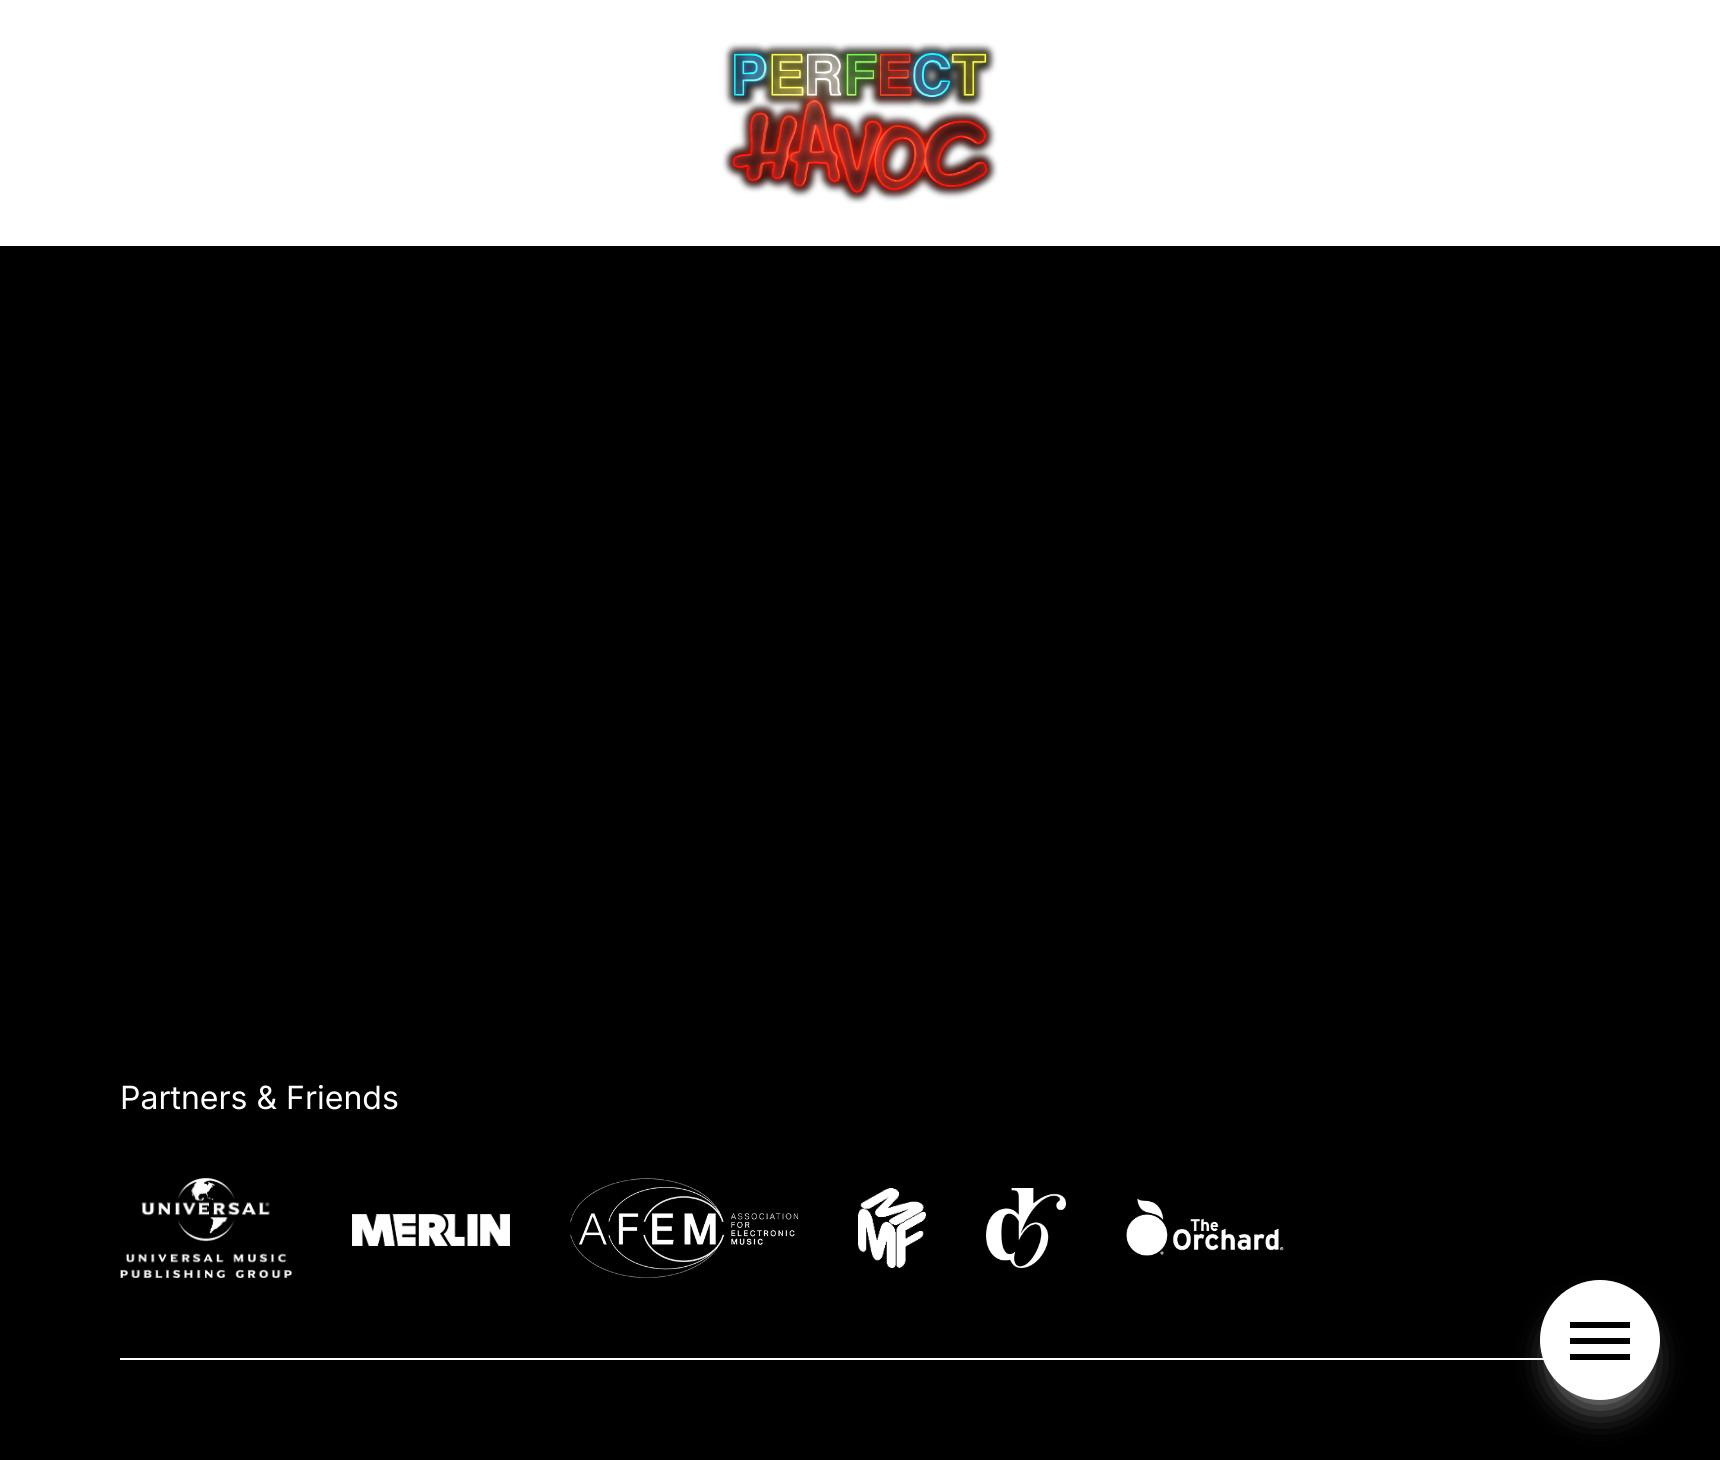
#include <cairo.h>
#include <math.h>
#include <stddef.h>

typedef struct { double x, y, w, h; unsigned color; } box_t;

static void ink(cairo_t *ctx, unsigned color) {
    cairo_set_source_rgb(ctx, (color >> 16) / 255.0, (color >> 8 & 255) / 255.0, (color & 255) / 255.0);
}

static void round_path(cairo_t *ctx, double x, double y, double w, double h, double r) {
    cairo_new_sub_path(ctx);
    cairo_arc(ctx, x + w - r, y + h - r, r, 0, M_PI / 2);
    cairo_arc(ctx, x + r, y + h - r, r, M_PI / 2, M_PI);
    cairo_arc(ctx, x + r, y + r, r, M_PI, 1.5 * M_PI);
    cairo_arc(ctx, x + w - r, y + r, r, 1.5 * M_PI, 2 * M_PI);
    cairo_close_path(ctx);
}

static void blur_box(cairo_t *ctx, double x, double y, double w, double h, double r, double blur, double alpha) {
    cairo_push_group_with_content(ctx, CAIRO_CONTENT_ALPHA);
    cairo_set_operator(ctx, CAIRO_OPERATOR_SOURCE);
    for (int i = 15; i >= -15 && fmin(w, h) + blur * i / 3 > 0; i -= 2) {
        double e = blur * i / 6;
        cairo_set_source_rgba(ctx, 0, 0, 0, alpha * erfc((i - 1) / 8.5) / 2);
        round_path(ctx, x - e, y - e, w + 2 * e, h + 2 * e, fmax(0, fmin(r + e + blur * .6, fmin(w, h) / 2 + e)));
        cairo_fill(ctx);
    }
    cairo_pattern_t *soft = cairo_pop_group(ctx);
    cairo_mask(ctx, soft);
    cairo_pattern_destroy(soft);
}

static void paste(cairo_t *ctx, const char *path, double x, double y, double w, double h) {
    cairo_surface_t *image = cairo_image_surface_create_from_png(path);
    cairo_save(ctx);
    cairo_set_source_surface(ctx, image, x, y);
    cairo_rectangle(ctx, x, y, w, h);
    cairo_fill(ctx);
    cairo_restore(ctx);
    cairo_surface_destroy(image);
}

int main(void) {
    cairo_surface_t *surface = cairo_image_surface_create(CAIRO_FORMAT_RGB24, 1720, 1460);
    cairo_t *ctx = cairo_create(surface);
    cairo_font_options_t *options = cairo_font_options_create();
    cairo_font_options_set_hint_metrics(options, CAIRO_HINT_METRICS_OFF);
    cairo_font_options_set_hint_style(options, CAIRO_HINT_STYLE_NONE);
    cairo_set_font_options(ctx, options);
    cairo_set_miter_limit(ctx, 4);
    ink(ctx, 0x000000);
    cairo_paint(ctx);
    ink(ctx, 0xFFFFFF);
    cairo_rectangle(ctx, 0, 0, 1720, 246);
    cairo_fill(ctx);
    paste(ctx, "media/1.png", 722, 42, 276, 162);
    cairo_rectangle(ctx, 120, 1358, 1424, 2);
    cairo_fill(ctx);
    cairo_select_font_face(ctx, "Inter", CAIRO_FONT_SLANT_NORMAL, CAIRO_FONT_WEIGHT_NORMAL);
    cairo_set_font_size(ctx, 32);
    cairo_move_to(ctx, 120, 1109);
    cairo_show_text(ctx, "Partners & Friends");
    paste(ctx, "media/2.png", 120, 1178, 172, 100);
    paste(ctx, "media/3.png", 352, 1214, 158, 32);
    paste(ctx, "media/4.png", 570, 1178, 228, 100);
    paste(ctx, "media/5.png", 858, 1188, 68, 80);
    paste(ctx, "media/6.png", 986, 1188, 80, 80);
    paste(ctx, "media/7.png", 1126, 1198, 158, 58);
    ink(ctx, 0xAFAFAF);
    blur_box(ctx, 1558, 1318, 84, 84, 42, 18, 1);
    ink(ctx, 0xFFFFFF);
    cairo_arc(ctx, 1600, 1340, 60, 0, 2 * M_PI);
    cairo_fill(ctx);
    {
        static const box_t items[] = {
            {1570, 1322, 60, 6, 0x000000},
            {1570, 1338, 60, 6, 0x000000},
            {1570, 1354, 60, 6, 0x000000},
        };
        for (size_t i = 0; i < sizeof items / sizeof *items; i++) {
            ink(ctx, items[i].color);
            cairo_rectangle(ctx, items[i].x, items[i].y, items[i].w, items[i].h);
            cairo_fill(ctx);
        }
    }
    cairo_surface_write_to_png(surface, "image.png");
    cairo_font_options_destroy(options);
    cairo_destroy(ctx);
    cairo_surface_destroy(surface);
    return 0;
}
